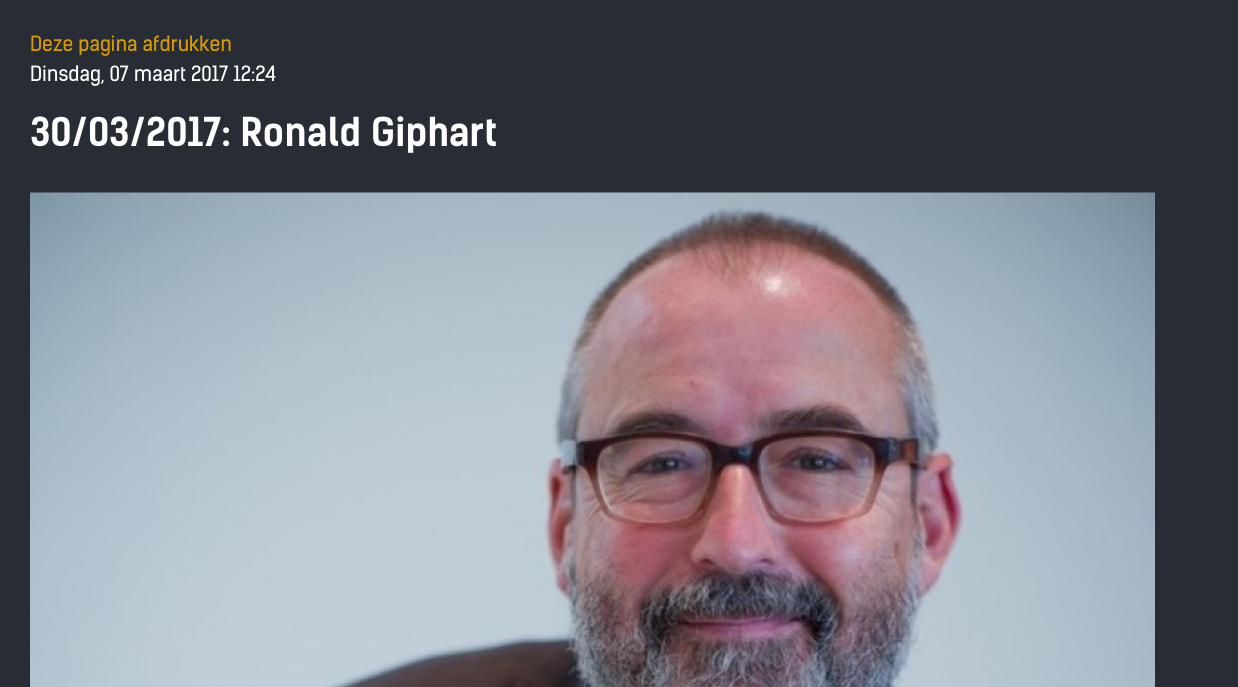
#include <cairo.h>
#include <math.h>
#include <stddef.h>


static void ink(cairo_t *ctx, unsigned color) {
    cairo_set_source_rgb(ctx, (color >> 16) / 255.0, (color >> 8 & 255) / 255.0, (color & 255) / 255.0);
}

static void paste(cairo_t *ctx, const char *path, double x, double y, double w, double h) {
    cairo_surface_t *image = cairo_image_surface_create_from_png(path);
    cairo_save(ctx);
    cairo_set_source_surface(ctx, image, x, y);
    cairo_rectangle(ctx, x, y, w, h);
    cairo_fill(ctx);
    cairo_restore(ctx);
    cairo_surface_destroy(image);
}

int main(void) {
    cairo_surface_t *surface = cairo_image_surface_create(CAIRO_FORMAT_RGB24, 1238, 687);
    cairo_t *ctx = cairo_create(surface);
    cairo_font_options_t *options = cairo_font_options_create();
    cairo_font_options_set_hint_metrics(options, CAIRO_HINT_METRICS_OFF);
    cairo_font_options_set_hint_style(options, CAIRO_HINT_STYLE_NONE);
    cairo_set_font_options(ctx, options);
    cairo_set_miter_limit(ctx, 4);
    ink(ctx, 0x272C35);
    cairo_paint(ctx);
    cairo_select_font_face(ctx, "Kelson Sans", CAIRO_FONT_SLANT_NORMAL, CAIRO_FONT_WEIGHT_NORMAL);
    cairo_set_font_size(ctx, 20);
    ink(ctx, 0xD99C00);
    cairo_move_to(ctx, 30, 51);
    cairo_show_text(ctx, "Deze pagina afdrukken");
    ink(ctx, 0xFFFFFF);
    cairo_move_to(ctx, 30, 81);
    cairo_show_text(ctx, "Dinsdag, 07 maart 2017 12:24");
    cairo_select_font_face(ctx, "Kelson Sans", CAIRO_FONT_SLANT_NORMAL, CAIRO_FONT_WEIGHT_BOLD);
    cairo_set_font_size(ctx, 38);
    cairo_move_to(ctx, 30, 146);
    cairo_show_text(ctx, "30/03/2017: Ronald Giphart");
    paste(ctx, "media/1.png", 30, 192, 1125, 495);
    cairo_surface_write_to_png(surface, "image.png");
    cairo_font_options_destroy(options);
    cairo_destroy(ctx);
    cairo_surface_destroy(surface);
    return 0;
}
